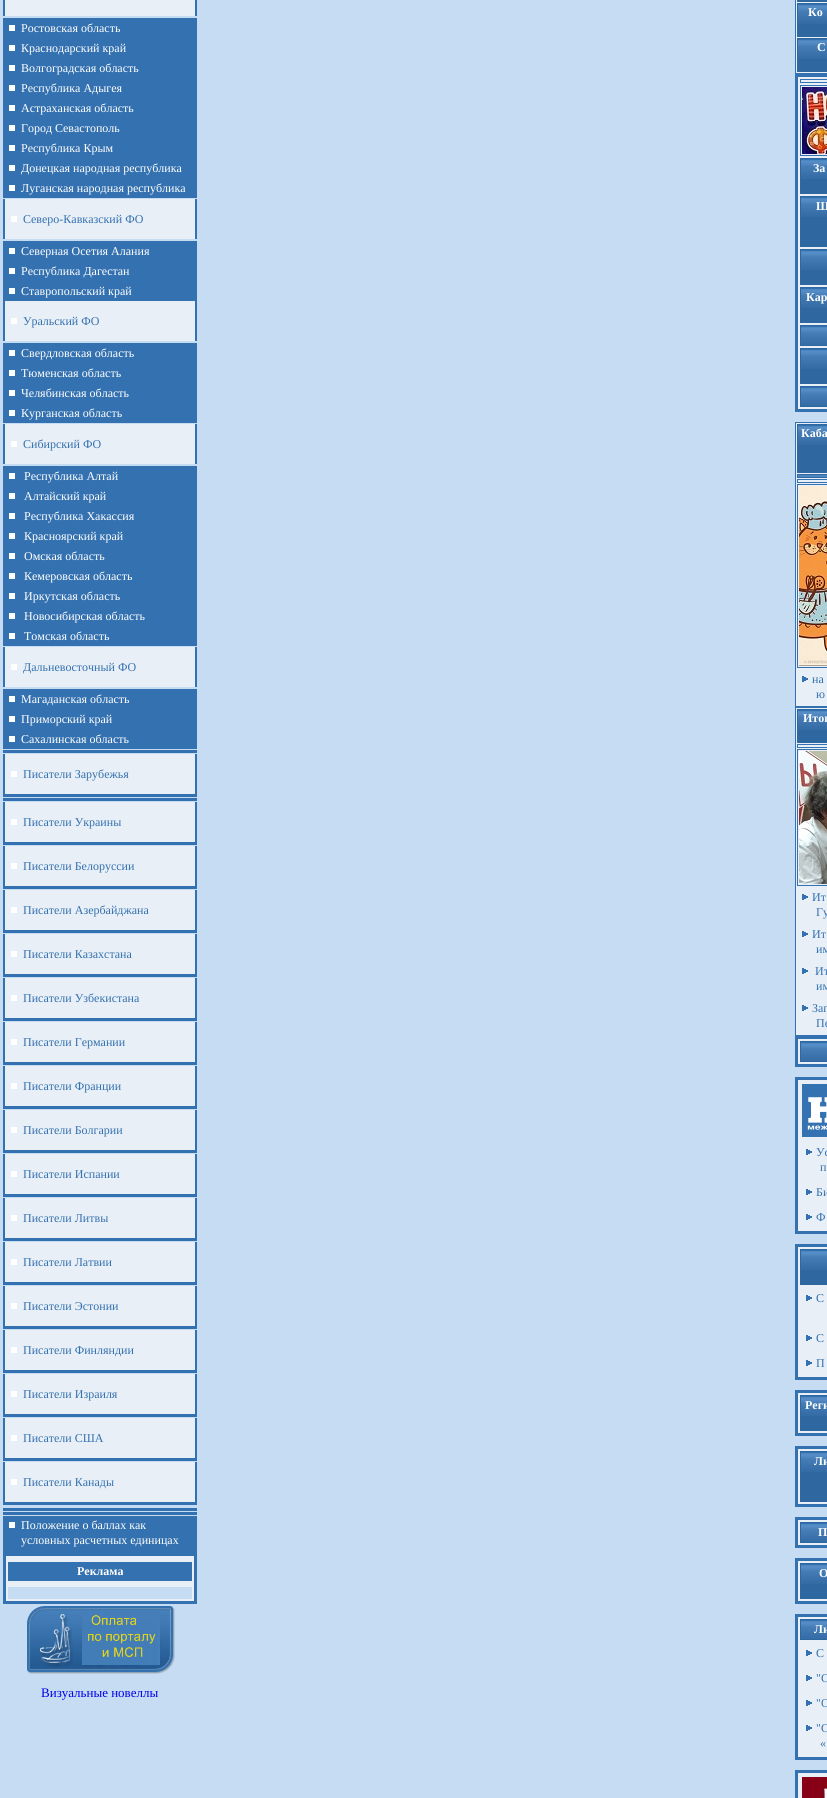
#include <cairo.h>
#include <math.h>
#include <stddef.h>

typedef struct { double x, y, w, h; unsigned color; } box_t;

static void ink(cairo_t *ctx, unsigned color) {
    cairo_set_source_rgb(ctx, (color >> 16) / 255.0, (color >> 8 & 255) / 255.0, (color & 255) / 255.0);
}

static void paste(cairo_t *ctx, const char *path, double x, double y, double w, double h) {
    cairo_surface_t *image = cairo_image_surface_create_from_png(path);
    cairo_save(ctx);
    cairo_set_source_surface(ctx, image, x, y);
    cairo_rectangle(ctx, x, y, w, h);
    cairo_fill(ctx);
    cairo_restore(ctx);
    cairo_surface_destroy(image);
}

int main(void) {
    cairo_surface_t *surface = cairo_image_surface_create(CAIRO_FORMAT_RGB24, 827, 1798);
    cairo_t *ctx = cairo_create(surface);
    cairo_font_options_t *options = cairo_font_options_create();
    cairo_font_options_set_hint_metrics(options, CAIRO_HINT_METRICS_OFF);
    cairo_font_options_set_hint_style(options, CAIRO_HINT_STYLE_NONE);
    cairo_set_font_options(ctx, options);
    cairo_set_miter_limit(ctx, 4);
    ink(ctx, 0xC5DCF3);
    cairo_paint(ctx);
    {
        static const box_t items[] = {
            {3, 18, 194, 1535, 0x3471B0},
            {5, 0, 190, 16, 0xE8EFF6},
            {195, 0, 2, 16, 0x3471B0},
            {3, 0, 2, 16, 0x3471B0},
            {9, 25, 6, 6, 0xFFFFFF},
        };
        for (size_t i = 0; i < sizeof items / sizeof *items; i++) {
            ink(ctx, items[i].color);
            cairo_rectangle(ctx, items[i].x, items[i].y, items[i].w, items[i].h);
            cairo_fill(ctx);
        }
    }
    cairo_select_font_face(ctx, "Liberation Serif", CAIRO_FONT_SLANT_NORMAL, CAIRO_FONT_WEIGHT_NORMAL);
    cairo_set_font_size(ctx, 12);
    cairo_move_to(ctx, 21, 32);
    cairo_show_text(ctx, "Ростовская область");
    cairo_rectangle(ctx, 9, 45, 6, 6);
    cairo_fill(ctx);
    cairo_move_to(ctx, 21, 52);
    cairo_show_text(ctx, "Краснодарский край");
    cairo_rectangle(ctx, 9, 65, 6, 6);
    cairo_fill(ctx);
    cairo_move_to(ctx, 21, 72);
    cairo_show_text(ctx, "Волгоградская область");
    cairo_rectangle(ctx, 9, 85, 6, 6);
    cairo_fill(ctx);
    cairo_move_to(ctx, 21, 92);
    cairo_show_text(ctx, "Республика Адыгея");
    cairo_rectangle(ctx, 9, 105, 6, 6);
    cairo_fill(ctx);
    cairo_move_to(ctx, 21, 112);
    cairo_show_text(ctx, "Астраханская область");
    cairo_rectangle(ctx, 9, 125, 6, 6);
    cairo_fill(ctx);
    cairo_move_to(ctx, 21, 132);
    cairo_show_text(ctx, "Город Севастополь");
    cairo_rectangle(ctx, 9, 145, 6, 6);
    cairo_fill(ctx);
    cairo_move_to(ctx, 21, 152);
    cairo_show_text(ctx, "Республика Крым");
    cairo_rectangle(ctx, 9, 165, 6, 6);
    cairo_fill(ctx);
    cairo_move_to(ctx, 21, 172);
    cairo_show_text(ctx, "Донецкая народная республика");
    cairo_rectangle(ctx, 9, 185, 6, 6);
    cairo_fill(ctx);
    cairo_move_to(ctx, 21, 192);
    cairo_show_text(ctx, "Луганская народная республика");
    {
        static const box_t items[] = {
            {3, 198, 194, 1, 0xC5DCF3},
            {5, 199, 190, 40, 0xE8EFF6},
            {11, 216, 6, 6, 0xFFFFFF},
        };
        for (size_t i = 0; i < sizeof items / sizeof *items; i++) {
            ink(ctx, items[i].color);
            cairo_rectangle(ctx, items[i].x, items[i].y, items[i].w, items[i].h);
            cairo_fill(ctx);
        }
    }
    ink(ctx, 0x3471B0);
    cairo_move_to(ctx, 23, 223);
    cairo_show_text(ctx, "Северо-Кавказский ФО");
    ink(ctx, 0xC5DCF3);
    cairo_rectangle(ctx, 3, 239, 194, 2);
    cairo_fill(ctx);
    ink(ctx, 0xFFFFFF);
    cairo_rectangle(ctx, 9, 248, 6, 6);
    cairo_fill(ctx);
    cairo_move_to(ctx, 21, 255);
    cairo_show_text(ctx, "Северная Осетия Алания");
    cairo_rectangle(ctx, 9, 268, 6, 6);
    cairo_fill(ctx);
    cairo_move_to(ctx, 21, 275);
    cairo_show_text(ctx, "Республика Дагестан");
    cairo_rectangle(ctx, 9, 288, 6, 6);
    cairo_fill(ctx);
    cairo_move_to(ctx, 21, 295);
    cairo_show_text(ctx, "Ставропольский край");
    ink(ctx, 0xE8EFF6);
    cairo_rectangle(ctx, 5, 301, 190, 40);
    cairo_fill(ctx);
    ink(ctx, 0xFFFFFF);
    cairo_rectangle(ctx, 11, 318, 6, 6);
    cairo_fill(ctx);
    ink(ctx, 0x3471B0);
    cairo_move_to(ctx, 23, 325);
    cairo_show_text(ctx, "Уральский ФО");
    ink(ctx, 0xC5DCF3);
    cairo_rectangle(ctx, 3, 341, 194, 2);
    cairo_fill(ctx);
    ink(ctx, 0xFFFFFF);
    cairo_rectangle(ctx, 9, 350, 6, 6);
    cairo_fill(ctx);
    cairo_move_to(ctx, 21, 357);
    cairo_show_text(ctx, "Cвердловская область");
    cairo_rectangle(ctx, 9, 370, 6, 6);
    cairo_fill(ctx);
    cairo_move_to(ctx, 21, 377);
    cairo_show_text(ctx, "Тюменская область");
    cairo_rectangle(ctx, 9, 390, 6, 6);
    cairo_fill(ctx);
    cairo_move_to(ctx, 21, 397);
    cairo_show_text(ctx, "Челябинская область");
    cairo_rectangle(ctx, 9, 410, 6, 6);
    cairo_fill(ctx);
    cairo_move_to(ctx, 21, 417);
    cairo_show_text(ctx, "Курганская область");
    {
        static const box_t items[] = {
            {3, 423, 194, 1, 0xC5DCF3},
            {5, 424, 190, 40, 0xE8EFF6},
            {11, 441, 6, 6, 0xFFFFFF},
        };
        for (size_t i = 0; i < sizeof items / sizeof *items; i++) {
            ink(ctx, items[i].color);
            cairo_rectangle(ctx, items[i].x, items[i].y, items[i].w, items[i].h);
            cairo_fill(ctx);
        }
    }
    ink(ctx, 0x3471B0);
    cairo_move_to(ctx, 23, 448);
    cairo_show_text(ctx, "Сибирский ФО");
    ink(ctx, 0xC5DCF3);
    cairo_rectangle(ctx, 3, 464, 194, 2);
    cairo_fill(ctx);
    ink(ctx, 0xFFFFFF);
    cairo_rectangle(ctx, 9, 473, 6, 6);
    cairo_fill(ctx);
    cairo_move_to(ctx, 24, 480);
    cairo_show_text(ctx, "Республика Алтай");
    cairo_rectangle(ctx, 9, 493, 6, 6);
    cairo_fill(ctx);
    cairo_move_to(ctx, 24, 500);
    cairo_show_text(ctx, "Алтайcкий край");
    cairo_rectangle(ctx, 9, 513, 6, 6);
    cairo_fill(ctx);
    cairo_move_to(ctx, 24, 520);
    cairo_show_text(ctx, "Республика Хакассия");
    cairo_rectangle(ctx, 9, 533, 6, 6);
    cairo_fill(ctx);
    cairo_move_to(ctx, 24, 540);
    cairo_show_text(ctx, "Красноярский край");
    cairo_rectangle(ctx, 9, 553, 6, 6);
    cairo_fill(ctx);
    cairo_move_to(ctx, 24, 560);
    cairo_show_text(ctx, "Омская область");
    cairo_rectangle(ctx, 9, 573, 6, 6);
    cairo_fill(ctx);
    cairo_move_to(ctx, 24, 580);
    cairo_show_text(ctx, "Кемеровская область");
    cairo_rectangle(ctx, 9, 593, 6, 6);
    cairo_fill(ctx);
    cairo_move_to(ctx, 24, 600);
    cairo_show_text(ctx, "Иркутская область");
    cairo_rectangle(ctx, 9, 613, 6, 6);
    cairo_fill(ctx);
    cairo_move_to(ctx, 24, 620);
    cairo_show_text(ctx, "Новосибирская область");
    cairo_rectangle(ctx, 9, 633, 6, 6);
    cairo_fill(ctx);
    cairo_move_to(ctx, 24, 640);
    cairo_show_text(ctx, "Томская область");
    {
        static const box_t items[] = {
            {3, 646, 194, 1, 0xC5DCF3},
            {5, 647, 190, 40, 0xE8EFF6},
            {11, 664, 6, 6, 0xFFFFFF},
        };
        for (size_t i = 0; i < sizeof items / sizeof *items; i++) {
            ink(ctx, items[i].color);
            cairo_rectangle(ctx, items[i].x, items[i].y, items[i].w, items[i].h);
            cairo_fill(ctx);
        }
    }
    ink(ctx, 0x3471B0);
    cairo_move_to(ctx, 23, 671);
    cairo_show_text(ctx, "Дальневосточный ФО");
    ink(ctx, 0xC5DCF3);
    cairo_rectangle(ctx, 3, 687, 194, 2);
    cairo_fill(ctx);
    ink(ctx, 0xFFFFFF);
    cairo_rectangle(ctx, 9, 696, 6, 6);
    cairo_fill(ctx);
    cairo_move_to(ctx, 21, 703);
    cairo_show_text(ctx, "Магаданская область");
    cairo_rectangle(ctx, 9, 716, 6, 6);
    cairo_fill(ctx);
    cairo_move_to(ctx, 21, 723);
    cairo_show_text(ctx, "Приморский край");
    cairo_rectangle(ctx, 9, 736, 6, 6);
    cairo_fill(ctx);
    cairo_move_to(ctx, 21, 743);
    cairo_show_text(ctx, "Cахалинская область");
    {
        static const box_t items[] = {
            {3, 749, 194, 1, 0xC5DCF3},
            {3, 753, 194, 1, 0xC5DCF3},
            {5, 754, 190, 40, 0xE8EFF6},
            {11, 771, 6, 6, 0xFFFFFF},
        };
        for (size_t i = 0; i < sizeof items / sizeof *items; i++) {
            ink(ctx, items[i].color);
            cairo_rectangle(ctx, items[i].x, items[i].y, items[i].w, items[i].h);
            cairo_fill(ctx);
        }
    }
    ink(ctx, 0x3471B0);
    cairo_move_to(ctx, 23, 778);
    cairo_show_text(ctx, "Писатели Зарубежья");
    {
        static const box_t items[] = {
            {3, 797, 194, 1, 0xC5DCF3},
            {3, 801, 194, 1, 0xC5DCF3},
            {5, 802, 190, 40, 0xE8EFF6},
            {11, 819, 6, 6, 0xFFFFFF},
        };
        for (size_t i = 0; i < sizeof items / sizeof *items; i++) {
            ink(ctx, items[i].color);
            cairo_rectangle(ctx, items[i].x, items[i].y, items[i].w, items[i].h);
            cairo_fill(ctx);
        }
    }
    ink(ctx, 0x3471B0);
    cairo_move_to(ctx, 23, 826);
    cairo_show_text(ctx, "Писатели Украины");
    {
        static const box_t items[] = {
            {3, 845, 194, 1, 0xC5DCF3},
            {5, 846, 190, 40, 0xE8EFF6},
            {11, 863, 6, 6, 0xFFFFFF},
        };
        for (size_t i = 0; i < sizeof items / sizeof *items; i++) {
            ink(ctx, items[i].color);
            cairo_rectangle(ctx, items[i].x, items[i].y, items[i].w, items[i].h);
            cairo_fill(ctx);
        }
    }
    ink(ctx, 0x3471B0);
    cairo_move_to(ctx, 23, 870);
    cairo_show_text(ctx, "Писатели Белоруссии");
    {
        static const box_t items[] = {
            {3, 889, 194, 1, 0xC5DCF3},
            {5, 890, 190, 40, 0xE8EFF6},
            {11, 907, 6, 6, 0xFFFFFF},
        };
        for (size_t i = 0; i < sizeof items / sizeof *items; i++) {
            ink(ctx, items[i].color);
            cairo_rectangle(ctx, items[i].x, items[i].y, items[i].w, items[i].h);
            cairo_fill(ctx);
        }
    }
    ink(ctx, 0x3471B0);
    cairo_move_to(ctx, 23, 914);
    cairo_show_text(ctx, "Писатели Азербайджана");
    {
        static const box_t items[] = {
            {3, 933, 194, 1, 0xC5DCF3},
            {5, 934, 190, 40, 0xE8EFF6},
            {11, 951, 6, 6, 0xFFFFFF},
        };
        for (size_t i = 0; i < sizeof items / sizeof *items; i++) {
            ink(ctx, items[i].color);
            cairo_rectangle(ctx, items[i].x, items[i].y, items[i].w, items[i].h);
            cairo_fill(ctx);
        }
    }
    ink(ctx, 0x3471B0);
    cairo_move_to(ctx, 23, 958);
    cairo_show_text(ctx, "Писатели Казахстана");
    {
        static const box_t items[] = {
            {3, 977, 194, 1, 0xC5DCF3},
            {5, 978, 190, 40, 0xE8EFF6},
            {11, 995, 6, 6, 0xFFFFFF},
        };
        for (size_t i = 0; i < sizeof items / sizeof *items; i++) {
            ink(ctx, items[i].color);
            cairo_rectangle(ctx, items[i].x, items[i].y, items[i].w, items[i].h);
            cairo_fill(ctx);
        }
    }
    ink(ctx, 0x3471B0);
    cairo_move_to(ctx, 23, 1002);
    cairo_show_text(ctx, "Писатели Узбекистана");
    {
        static const box_t items[] = {
            {3, 1021, 194, 1, 0xC5DCF3},
            {5, 1022, 190, 40, 0xE8EFF6},
            {11, 1039, 6, 6, 0xFFFFFF},
        };
        for (size_t i = 0; i < sizeof items / sizeof *items; i++) {
            ink(ctx, items[i].color);
            cairo_rectangle(ctx, items[i].x, items[i].y, items[i].w, items[i].h);
            cairo_fill(ctx);
        }
    }
    ink(ctx, 0x3471B0);
    cairo_move_to(ctx, 23, 1046);
    cairo_show_text(ctx, "Писатели Германии");
    {
        static const box_t items[] = {
            {3, 1065, 194, 1, 0xC5DCF3},
            {5, 1066, 190, 40, 0xE8EFF6},
            {11, 1083, 6, 6, 0xFFFFFF},
        };
        for (size_t i = 0; i < sizeof items / sizeof *items; i++) {
            ink(ctx, items[i].color);
            cairo_rectangle(ctx, items[i].x, items[i].y, items[i].w, items[i].h);
            cairo_fill(ctx);
        }
    }
    ink(ctx, 0x3471B0);
    cairo_move_to(ctx, 23, 1090);
    cairo_show_text(ctx, "Писатели Франции");
    {
        static const box_t items[] = {
            {3, 1109, 194, 1, 0xC5DCF3},
            {5, 1110, 190, 40, 0xE8EFF6},
            {11, 1127, 6, 6, 0xFFFFFF},
        };
        for (size_t i = 0; i < sizeof items / sizeof *items; i++) {
            ink(ctx, items[i].color);
            cairo_rectangle(ctx, items[i].x, items[i].y, items[i].w, items[i].h);
            cairo_fill(ctx);
        }
    }
    ink(ctx, 0x3471B0);
    cairo_move_to(ctx, 23, 1134);
    cairo_show_text(ctx, "Писатели Болгарии");
    {
        static const box_t items[] = {
            {3, 1153, 194, 1, 0xC5DCF3},
            {5, 1154, 190, 40, 0xE8EFF6},
            {11, 1171, 6, 6, 0xFFFFFF},
        };
        for (size_t i = 0; i < sizeof items / sizeof *items; i++) {
            ink(ctx, items[i].color);
            cairo_rectangle(ctx, items[i].x, items[i].y, items[i].w, items[i].h);
            cairo_fill(ctx);
        }
    }
    ink(ctx, 0x3471B0);
    cairo_move_to(ctx, 23, 1178);
    cairo_show_text(ctx, "Писатели Испании");
    {
        static const box_t items[] = {
            {3, 1197, 194, 1, 0xC5DCF3},
            {5, 1198, 190, 40, 0xE8EFF6},
            {11, 1215, 6, 6, 0xFFFFFF},
        };
        for (size_t i = 0; i < sizeof items / sizeof *items; i++) {
            ink(ctx, items[i].color);
            cairo_rectangle(ctx, items[i].x, items[i].y, items[i].w, items[i].h);
            cairo_fill(ctx);
        }
    }
    ink(ctx, 0x3471B0);
    cairo_move_to(ctx, 23, 1222);
    cairo_show_text(ctx, "Писатели Литвы");
    {
        static const box_t items[] = {
            {3, 1241, 194, 1, 0xC5DCF3},
            {5, 1242, 190, 40, 0xE8EFF6},
            {11, 1259, 6, 6, 0xFFFFFF},
        };
        for (size_t i = 0; i < sizeof items / sizeof *items; i++) {
            ink(ctx, items[i].color);
            cairo_rectangle(ctx, items[i].x, items[i].y, items[i].w, items[i].h);
            cairo_fill(ctx);
        }
    }
    ink(ctx, 0x3471B0);
    cairo_move_to(ctx, 23, 1266);
    cairo_show_text(ctx, "Писатели Латвии");
    {
        static const box_t items[] = {
            {3, 1285, 194, 1, 0xC5DCF3},
            {5, 1286, 190, 40, 0xE8EFF6},
            {11, 1303, 6, 6, 0xFFFFFF},
        };
        for (size_t i = 0; i < sizeof items / sizeof *items; i++) {
            ink(ctx, items[i].color);
            cairo_rectangle(ctx, items[i].x, items[i].y, items[i].w, items[i].h);
            cairo_fill(ctx);
        }
    }
    ink(ctx, 0x3471B0);
    cairo_move_to(ctx, 23, 1310);
    cairo_show_text(ctx, "Писатели Эстонии");
    {
        static const box_t items[] = {
            {3, 1329, 194, 1, 0xC5DCF3},
            {5, 1330, 190, 40, 0xE8EFF6},
            {11, 1347, 6, 6, 0xFFFFFF},
        };
        for (size_t i = 0; i < sizeof items / sizeof *items; i++) {
            ink(ctx, items[i].color);
            cairo_rectangle(ctx, items[i].x, items[i].y, items[i].w, items[i].h);
            cairo_fill(ctx);
        }
    }
    ink(ctx, 0x3471B0);
    cairo_move_to(ctx, 23, 1354);
    cairo_show_text(ctx, "Писатели Финляндии");
    {
        static const box_t items[] = {
            {3, 1373, 194, 1, 0xC5DCF3},
            {5, 1374, 190, 40, 0xE8EFF6},
            {11, 1391, 6, 6, 0xFFFFFF},
        };
        for (size_t i = 0; i < sizeof items / sizeof *items; i++) {
            ink(ctx, items[i].color);
            cairo_rectangle(ctx, items[i].x, items[i].y, items[i].w, items[i].h);
            cairo_fill(ctx);
        }
    }
    ink(ctx, 0x3471B0);
    cairo_move_to(ctx, 23, 1398);
    cairo_show_text(ctx, "Писатели Израиля");
    {
        static const box_t items[] = {
            {3, 1417, 194, 1, 0xC5DCF3},
            {5, 1418, 190, 40, 0xE8EFF6},
            {11, 1435, 6, 6, 0xFFFFFF},
        };
        for (size_t i = 0; i < sizeof items / sizeof *items; i++) {
            ink(ctx, items[i].color);
            cairo_rectangle(ctx, items[i].x, items[i].y, items[i].w, items[i].h);
            cairo_fill(ctx);
        }
    }
    ink(ctx, 0x3471B0);
    cairo_move_to(ctx, 23, 1442);
    cairo_show_text(ctx, "Писатели США");
    {
        static const box_t items[] = {
            {3, 1461, 194, 1, 0xC5DCF3},
            {5, 1462, 190, 40, 0xE8EFF6},
            {11, 1479, 6, 6, 0xFFFFFF},
        };
        for (size_t i = 0; i < sizeof items / sizeof *items; i++) {
            ink(ctx, items[i].color);
            cairo_rectangle(ctx, items[i].x, items[i].y, items[i].w, items[i].h);
            cairo_fill(ctx);
        }
    }
    ink(ctx, 0x3471B0);
    cairo_move_to(ctx, 23, 1486);
    cairo_show_text(ctx, "Писатели Канады");
    {
        static const box_t items[] = {
            {3, 1505, 194, 3, 0xC5DCF3},
            {3, 1511, 194, 1, 0xC5DCF3},
            {3, 1515, 194, 1, 0xC5DCF3},
            {9, 1522, 6, 6, 0xFFFFFF},
        };
        for (size_t i = 0; i < sizeof items / sizeof *items; i++) {
            ink(ctx, items[i].color);
            cairo_rectangle(ctx, items[i].x, items[i].y, items[i].w, items[i].h);
            cairo_fill(ctx);
        }
    }
    cairo_move_to(ctx, 21, 1529);
    cairo_show_text(ctx, "Положение о баллах как");
    cairo_move_to(ctx, 21, 1544);
    cairo_show_text(ctx, "условных расчетных единицах");
    ink(ctx, 0xE8EFF6);
    cairo_rectangle(ctx, 4.5, 1554.5, 191, 48);
    cairo_fill_preserve(ctx);
    ink(ctx, 0x3471B0);
    cairo_set_line_width(ctx, 3);
    cairo_stroke(ctx);
    cairo_rectangle(ctx, 8, 1562, 184, 19);
    cairo_fill(ctx);
    cairo_select_font_face(ctx, "Liberation Serif", CAIRO_FONT_SLANT_NORMAL, CAIRO_FONT_WEIGHT_BOLD);
    ink(ctx, 0xFFFFFF);
    cairo_move_to(ctx, 77, 1575);
    cairo_show_text(ctx, "Реклама");
    ink(ctx, 0xC5DCF3);
    cairo_rectangle(ctx, 8, 1587, 184, 12);
    cairo_fill(ctx);
    paste(ctx, "media/1.png", 27, 1606, 148, 68);
    cairo_select_font_face(ctx, "Liberation Serif", CAIRO_FONT_SLANT_NORMAL, CAIRO_FONT_WEIGHT_NORMAL);
    cairo_set_font_size(ctx, 13);
    ink(ctx, 0x0000EE);
    cairo_move_to(ctx, 41, 1697);
    cairo_show_text(ctx, "Визуальные новеллы");
    ink(ctx, 0xE8EFF6);
    cairo_rectangle(ctx, 795.5, -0.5, 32, 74);
    cairo_fill_preserve(ctx);
    ink(ctx, 0x3471B0);
    cairo_set_line_width(ctx, 1);
    cairo_stroke(ctx);
    ink(ctx, 0x2F67A0);
    cairo_rectangle(ctx, 797, 0, 30, 2);
    cairo_fill(ctx);
    cairo_rectangle(ctx, 798, 24, 29, 12);
    cairo_fill(ctx);
    paste(ctx, "media/2.png", 798, 4, 29, 20);
    cairo_rectangle(ctx, 797.5, 3.5, 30, 33);
    cairo_stroke(ctx);
    cairo_select_font_face(ctx, "Liberation Serif", CAIRO_FONT_SLANT_NORMAL, CAIRO_FONT_WEIGHT_BOLD);
    cairo_set_font_size(ctx, 12);
    ink(ctx, 0xFFFFFF);
    cairo_move_to(ctx, 808, 16);
    cairo_show_text(ctx, "Ко");
    ink(ctx, 0x2F67A0);
    cairo_rectangle(ctx, 798, 59, 29, 12);
    cairo_fill(ctx);
    paste(ctx, "media/2.png", 798, 39, 29, 20);
    cairo_rectangle(ctx, 797.5, 38.5, 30, 33);
    cairo_stroke(ctx);
    ink(ctx, 0xFFFFFF);
    cairo_move_to(ctx, 817, 51);
    cairo_show_text(ctx, "C");
    ink(ctx, 0xE8EFF6);
    cairo_rectangle(ctx, 796.5, 75.5, 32, 335);
    cairo_fill_preserve(ctx);
    ink(ctx, 0x3471B0);
    cairo_set_line_width(ctx, 3);
    cairo_stroke(ctx);
    cairo_rectangle(ctx, 800.5, 79.5, 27, 3);
    cairo_set_line_width(ctx, 1);
    cairo_stroke(ctx);
    cairo_rectangle(ctx, 800.5, 85.5, 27, 70);
    cairo_stroke(ctx);
    paste(ctx, "media/3.png", 802, 87, 25, 67);
    ink(ctx, 0x2F67A0);
    cairo_rectangle(ctx, 801, 179, 26, 14);
    cairo_fill(ctx);
    paste(ctx, "media/4.png", 801, 159, 26, 20);
    cairo_rectangle(ctx, 800.5, 158.5, 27, 35);
    cairo_stroke(ctx);
    ink(ctx, 0xFFFFFF);
    cairo_move_to(ctx, 813, 172);
    cairo_show_text(ctx, "За");
    ink(ctx, 0x2F67A0);
    cairo_rectangle(ctx, 801, 217, 26, 29);
    cairo_fill(ctx);
    paste(ctx, "media/4.png", 801, 197, 26, 20);
    cairo_rectangle(ctx, 800.5, 196.5, 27, 50);
    cairo_stroke(ctx);
    ink(ctx, 0xFFFFFF);
    cairo_move_to(ctx, 816, 210);
    cairo_show_text(ctx, "Ш");
    ink(ctx, 0x2F67A0);
    cairo_rectangle(ctx, 801, 270, 26, 14);
    cairo_fill(ctx);
    paste(ctx, "media/4.png", 801, 250, 26, 20);
    cairo_rectangle(ctx, 800.5, 249.5, 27, 35);
    cairo_stroke(ctx);
    cairo_rectangle(ctx, 801, 308, 26, 14);
    cairo_fill(ctx);
    paste(ctx, "media/4.png", 801, 288, 26, 20);
    cairo_rectangle(ctx, 800.5, 287.5, 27, 35);
    cairo_stroke(ctx);
    ink(ctx, 0xFFFFFF);
    cairo_move_to(ctx, 806, 301);
    cairo_show_text(ctx, "Кар");
    paste(ctx, "media/5.png", 801, 326, 26, 19);
    cairo_rectangle(ctx, 800.5, 325.5, 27, 20);
    ink(ctx, 0x2F67A0);
    cairo_stroke(ctx);
    cairo_rectangle(ctx, 801, 369, 26, 14);
    cairo_fill(ctx);
    paste(ctx, "media/4.png", 801, 349, 26, 20);
    cairo_rectangle(ctx, 800.5, 348.5, 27, 35);
    cairo_stroke(ctx);
    paste(ctx, "media/5.png", 801, 387, 26, 19);
    cairo_rectangle(ctx, 800.5, 386.5, 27, 20);
    cairo_stroke(ctx);
    ink(ctx, 0xE8EFF6);
    cairo_rectangle(ctx, 795.5, 422.5, 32, 284);
    cairo_fill_preserve(ctx);
    ink(ctx, 0x3471B0);
    cairo_stroke(ctx);
    ink(ctx, 0x2F67A0);
    cairo_rectangle(ctx, 798, 445, 29, 27);
    cairo_fill(ctx);
    paste(ctx, "media/2.png", 798, 425, 29, 20);
    cairo_rectangle(ctx, 797.5, 424.5, 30, 48);
    cairo_stroke(ctx);
    ink(ctx, 0xFFFFFF);
    cairo_move_to(ctx, 801, 437);
    cairo_show_text(ctx, "Каба");
    ink(ctx, 0x4D87C2);
    cairo_rectangle(ctx, 797.5, 474.5, 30, 3);
    cairo_fill_preserve(ctx);
    ink(ctx, 0x2F67A0);
    cairo_stroke(ctx);
    cairo_rectangle(ctx, 797.5, 479.5, 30, 3);
    ink(ctx, 0x3471B0);
    cairo_stroke(ctx);
    cairo_rectangle(ctx, 797.5, 484.5, 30, 183);
    cairo_stroke(ctx);
    paste(ctx, "media/6.png", 799, 486, 28, 180);
    paste(ctx, "media/7.png", 802, 676, 6, 6);
    cairo_select_font_face(ctx, "Liberation Serif", CAIRO_FONT_SLANT_NORMAL, CAIRO_FONT_WEIGHT_NORMAL);
    cairo_move_to(ctx, 812, 683);
    cairo_show_text(ctx, "на");
    cairo_move_to(ctx, 816, 698);
    cairo_show_text(ctx, "ю");
    ink(ctx, 0xE8EFF6);
    cairo_rectangle(ctx, 795.5, 707.5, 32, 328);
    cairo_fill_preserve(ctx);
    ink(ctx, 0x3471B0);
    cairo_stroke(ctx);
    ink(ctx, 0x2F67A0);
    cairo_rectangle(ctx, 798, 730, 29, 12);
    cairo_fill(ctx);
    paste(ctx, "media/2.png", 798, 710, 29, 20);
    cairo_rectangle(ctx, 797.5, 709.5, 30, 33);
    cairo_stroke(ctx);
    cairo_select_font_face(ctx, "Liberation Serif", CAIRO_FONT_SLANT_NORMAL, CAIRO_FONT_WEIGHT_BOLD);
    ink(ctx, 0xFFFFFF);
    cairo_move_to(ctx, 803, 722);
    cairo_show_text(ctx, "Итог");
    cairo_rectangle(ctx, 797.5, 744.5, 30, 3);
    ink(ctx, 0x3471B0);
    cairo_stroke(ctx);
    cairo_rectangle(ctx, 797.5, 749.5, 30, 136);
    cairo_stroke(ctx);
    paste(ctx, "media/8.png", 799, 751, 28, 133);
    paste(ctx, "media/7.png", 802, 894, 6, 6);
    cairo_select_font_face(ctx, "Liberation Serif", CAIRO_FONT_SLANT_NORMAL, CAIRO_FONT_WEIGHT_NORMAL);
    cairo_move_to(ctx, 812, 901);
    cairo_show_text(ctx, "Ит");
    cairo_move_to(ctx, 816, 916);
    cairo_show_text(ctx, "Гу");
    paste(ctx, "media/7.png", 802, 931, 6, 6);
    cairo_move_to(ctx, 812, 938);
    cairo_show_text(ctx, "Ит");
    cairo_move_to(ctx, 816, 953);
    cairo_show_text(ctx, "им");
    paste(ctx, "media/7.png", 802, 968, 6, 6);
    cairo_move_to(ctx, 815, 975);
    cairo_show_text(ctx, "Ит");
    cairo_move_to(ctx, 816, 990);
    cairo_show_text(ctx, "им");
    paste(ctx, "media/7.png", 802, 1005, 6, 6);
    cairo_move_to(ctx, 812, 1012);
    cairo_show_text(ctx, "Заг");
    cairo_move_to(ctx, 816, 1027);
    cairo_show_text(ctx, "Пе");
    ink(ctx, 0xE8EFF6);
    cairo_rectangle(ctx, 796.5, 1037.5, 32, 28);
    cairo_fill_preserve(ctx);
    ink(ctx, 0x3471B0);
    cairo_set_line_width(ctx, 3);
    cairo_stroke(ctx);
    paste(ctx, "media/5.png", 801, 1042, 26, 19);
    cairo_rectangle(ctx, 800.5, 1041.5, 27, 20);
    ink(ctx, 0x2F67A0);
    cairo_set_line_width(ctx, 1);
    cairo_stroke(ctx);
    ink(ctx, 0xE8EFF6);
    cairo_rectangle(ctx, 796.5, 1078.5, 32, 154);
    cairo_fill_preserve(ctx);
    ink(ctx, 0x3471B0);
    cairo_set_line_width(ctx, 3);
    cairo_stroke(ctx);
    paste(ctx, "media/9.png", 802, 1084, 25, 53);
    paste(ctx, "media/7.png", 806, 1149, 6, 6);
    cairo_move_to(ctx, 816, 1156);
    cairo_show_text(ctx, "Ус");
    cairo_move_to(ctx, 820, 1171);
    cairo_show_text(ctx, "п");
    paste(ctx, "media/7.png", 806, 1189, 6, 6);
    cairo_move_to(ctx, 816, 1196);
    cairo_show_text(ctx, "Би");
    paste(ctx, "media/7.png", 806, 1214, 6, 6);
    cairo_move_to(ctx, 816, 1221);
    cairo_show_text(ctx, "Ф");
    ink(ctx, 0xE8EFF6);
    cairo_rectangle(ctx, 796.5, 1245.5, 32, 133);
    cairo_fill_preserve(ctx);
    ink(ctx, 0x3471B0);
    cairo_stroke(ctx);
    ink(ctx, 0x2F67A0);
    cairo_rectangle(ctx, 801, 1270, 26, 14);
    cairo_fill(ctx);
    paste(ctx, "media/4.png", 801, 1250, 26, 20);
    cairo_rectangle(ctx, 800.5, 1249.5, 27, 35);
    cairo_set_line_width(ctx, 1);
    cairo_stroke(ctx);
    paste(ctx, "media/7.png", 806, 1295, 6, 6);
    ink(ctx, 0x3471B0);
    cairo_move_to(ctx, 816, 1302);
    cairo_show_text(ctx, "С");
    paste(ctx, "media/7.png", 806, 1335, 6, 6);
    cairo_move_to(ctx, 816, 1342);
    cairo_show_text(ctx, "С");
    paste(ctx, "media/7.png", 806, 1360, 6, 6);
    cairo_move_to(ctx, 816, 1367);
    cairo_show_text(ctx, "П");
    ink(ctx, 0xE8EFF6);
    cairo_rectangle(ctx, 796.5, 1391.5, 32, 43);
    cairo_fill_preserve(ctx);
    ink(ctx, 0x3471B0);
    cairo_set_line_width(ctx, 3);
    cairo_stroke(ctx);
    ink(ctx, 0x2F67A0);
    cairo_rectangle(ctx, 801, 1416, 26, 14);
    cairo_fill(ctx);
    paste(ctx, "media/4.png", 801, 1396, 26, 20);
    cairo_rectangle(ctx, 800.5, 1395.5, 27, 35);
    cairo_set_line_width(ctx, 1);
    cairo_stroke(ctx);
    cairo_select_font_face(ctx, "Liberation Serif", CAIRO_FONT_SLANT_NORMAL, CAIRO_FONT_WEIGHT_BOLD);
    ink(ctx, 0xFFFFFF);
    cairo_move_to(ctx, 805, 1409);
    cairo_show_text(ctx, "Реги");
    ink(ctx, 0xE8EFF6);
    cairo_rectangle(ctx, 796.5, 1447.5, 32, 58);
    cairo_fill_preserve(ctx);
    ink(ctx, 0x3471B0);
    cairo_set_line_width(ctx, 3);
    cairo_stroke(ctx);
    ink(ctx, 0x2F67A0);
    cairo_rectangle(ctx, 801, 1472, 26, 29);
    cairo_fill(ctx);
    paste(ctx, "media/4.png", 801, 1452, 26, 20);
    cairo_rectangle(ctx, 800.5, 1451.5, 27, 50);
    cairo_set_line_width(ctx, 1);
    cairo_stroke(ctx);
    ink(ctx, 0xFFFFFF);
    cairo_move_to(ctx, 814, 1465);
    cairo_show_text(ctx, "Ли");
    ink(ctx, 0xE8EFF6);
    cairo_rectangle(ctx, 796.5, 1518.5, 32, 28);
    cairo_fill_preserve(ctx);
    ink(ctx, 0x3471B0);
    cairo_set_line_width(ctx, 3);
    cairo_stroke(ctx);
    paste(ctx, "media/5.png", 801, 1523, 26, 19);
    cairo_rectangle(ctx, 800.5, 1522.5, 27, 20);
    ink(ctx, 0x2F67A0);
    cairo_set_line_width(ctx, 1);
    cairo_stroke(ctx);
    ink(ctx, 0xFFFFFF);
    cairo_move_to(ctx, 818, 1536);
    cairo_show_text(ctx, "П");
    ink(ctx, 0xE8EFF6);
    cairo_rectangle(ctx, 796.5, 1559.5, 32, 43);
    cairo_fill_preserve(ctx);
    ink(ctx, 0x3471B0);
    cairo_set_line_width(ctx, 3);
    cairo_stroke(ctx);
    ink(ctx, 0x2F67A0);
    cairo_rectangle(ctx, 801, 1584, 26, 14);
    cairo_fill(ctx);
    paste(ctx, "media/4.png", 801, 1564, 26, 20);
    cairo_rectangle(ctx, 800.5, 1563.5, 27, 35);
    cairo_set_line_width(ctx, 1);
    cairo_stroke(ctx);
    ink(ctx, 0xFFFFFF);
    cairo_move_to(ctx, 819, 1577);
    cairo_show_text(ctx, "О");
    ink(ctx, 0xE8EFF6);
    cairo_rectangle(ctx, 796.5, 1615.5, 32, 143);
    cairo_fill_preserve(ctx);
    ink(ctx, 0x3471B0);
    cairo_set_line_width(ctx, 3);
    cairo_stroke(ctx);
    paste(ctx, "media/5.png", 801, 1620, 26, 19);
    cairo_rectangle(ctx, 800.5, 1619.5, 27, 20);
    ink(ctx, 0x2F67A0);
    cairo_set_line_width(ctx, 1);
    cairo_stroke(ctx);
    ink(ctx, 0xFFFFFF);
    cairo_move_to(ctx, 814, 1633);
    cairo_show_text(ctx, "Ли");
    paste(ctx, "media/7.png", 806, 1650, 6, 6);
    cairo_select_font_face(ctx, "Liberation Serif", CAIRO_FONT_SLANT_NORMAL, CAIRO_FONT_WEIGHT_NORMAL);
    ink(ctx, 0x3471B0);
    cairo_move_to(ctx, 816, 1657);
    cairo_show_text(ctx, "С");
    paste(ctx, "media/7.png", 806, 1675, 6, 6);
    cairo_move_to(ctx, 816, 1682);
    cairo_show_text(ctx, "\"C");
    paste(ctx, "media/7.png", 806, 1700, 6, 6);
    cairo_move_to(ctx, 816, 1707);
    cairo_show_text(ctx, "\"О");
    paste(ctx, "media/7.png", 806, 1725, 6, 6);
    cairo_move_to(ctx, 816, 1732);
    cairo_show_text(ctx, "\"С");
    cairo_move_to(ctx, 820, 1747);
    cairo_show_text(ctx, "«");
    ink(ctx, 0xE8EFF6);
    cairo_rectangle(ctx, 796.5, 1771.5, 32, 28);
    cairo_fill_preserve(ctx);
    ink(ctx, 0x3471B0);
    cairo_set_line_width(ctx, 3);
    cairo_stroke(ctx);
    paste(ctx, "media/10.png", 802, 1777, 25, 21);
    cairo_surface_write_to_png(surface, "image.png");
    cairo_font_options_destroy(options);
    cairo_destroy(ctx);
    cairo_surface_destroy(surface);
    return 0;
}
